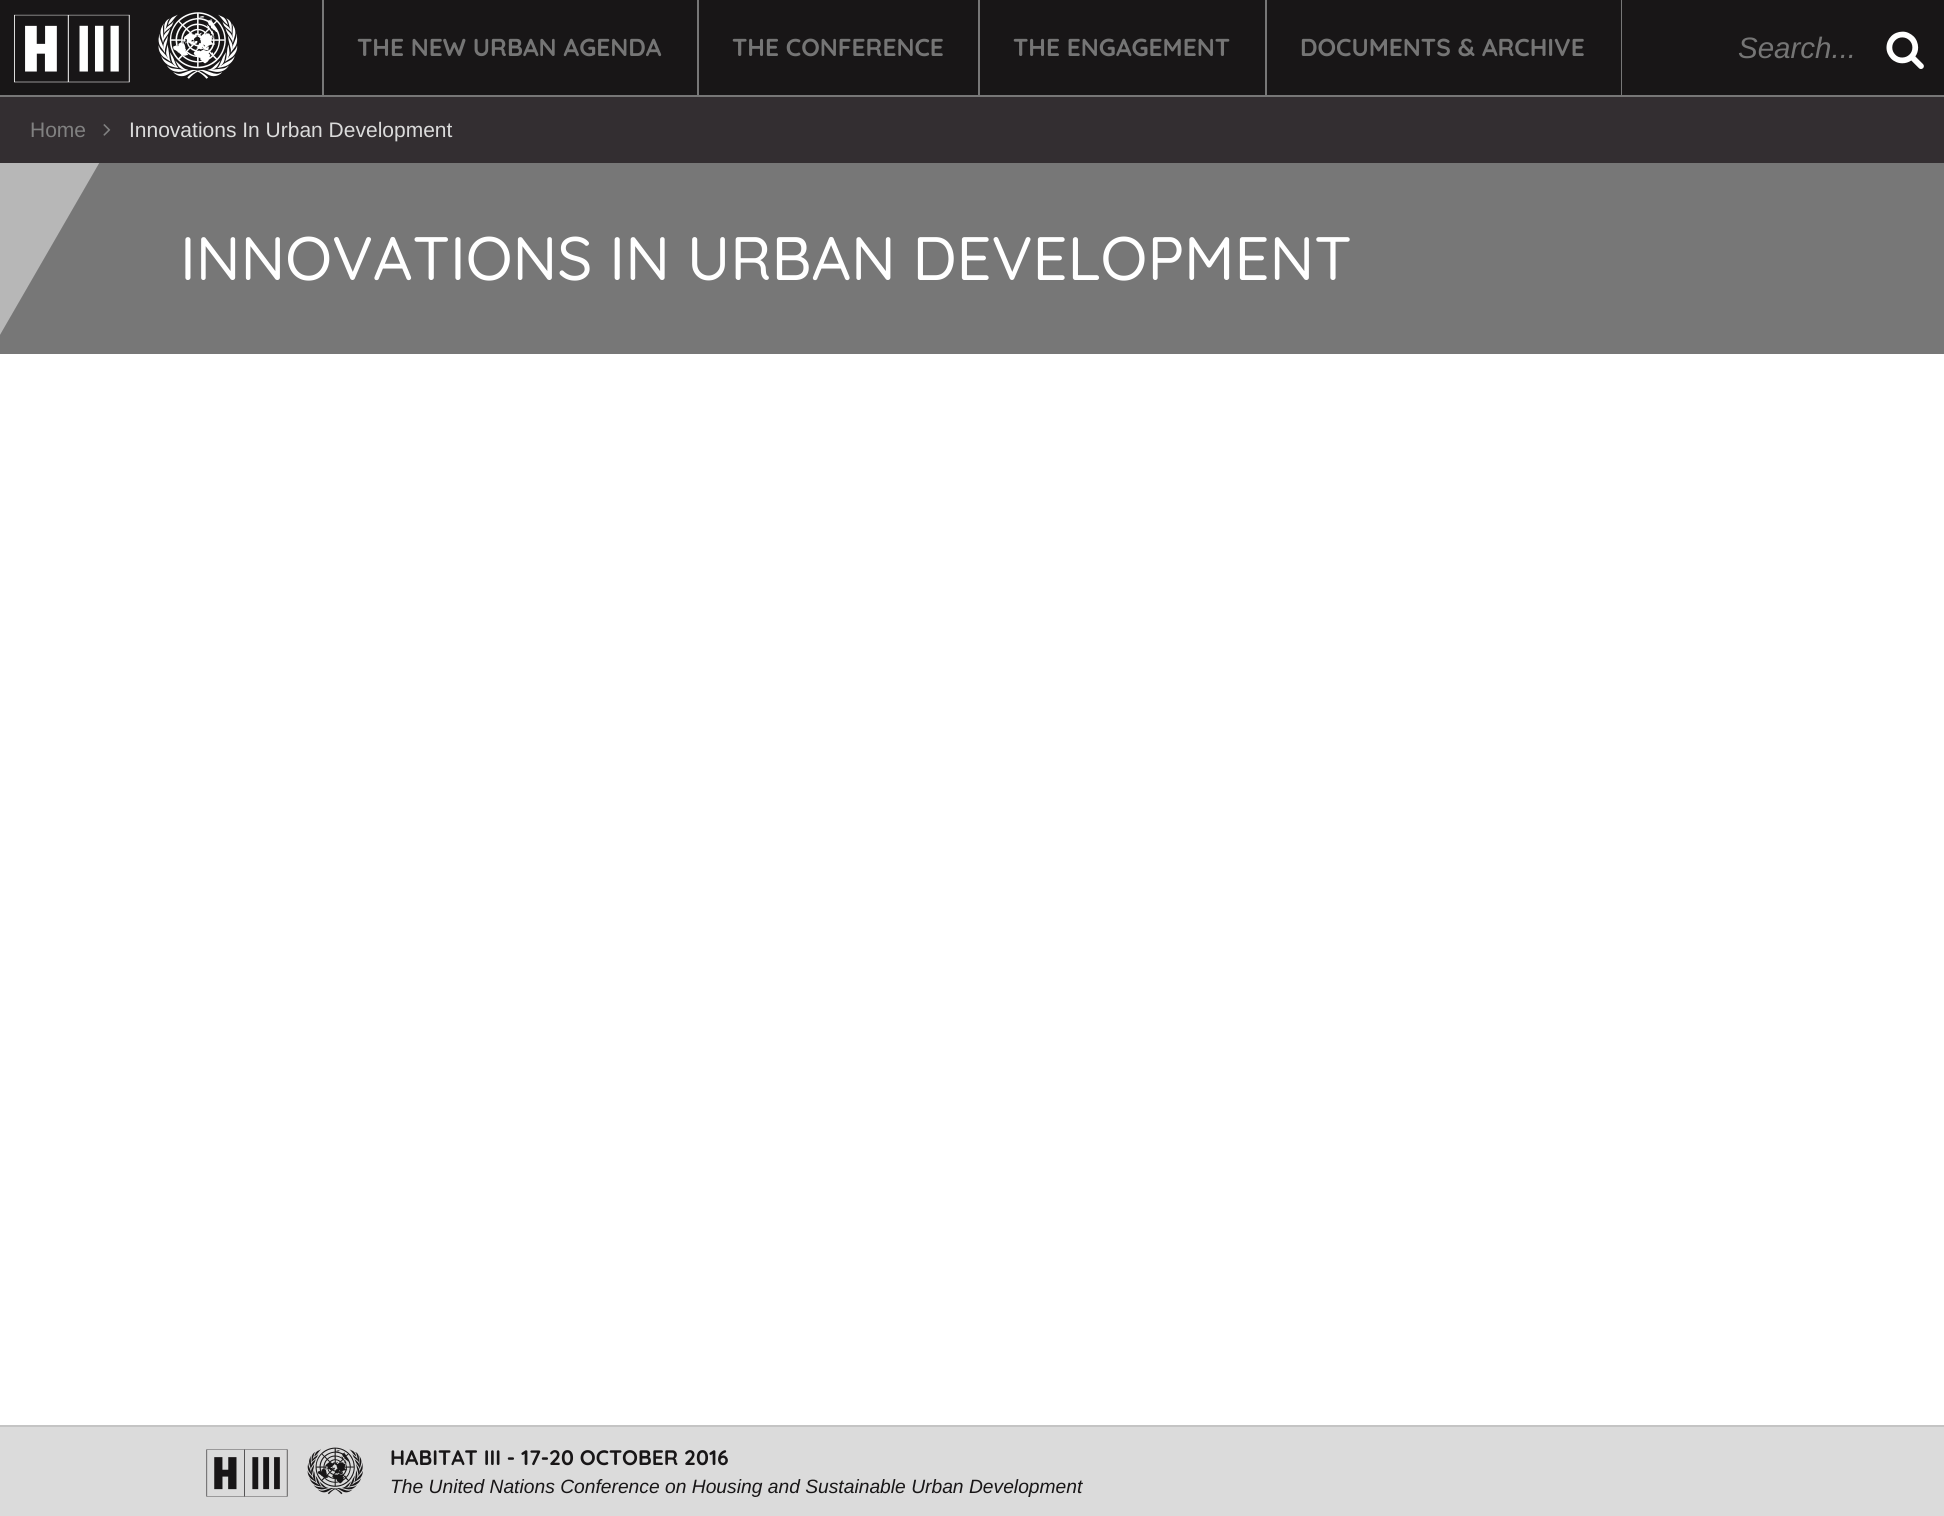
#include <cairo.h>
#include <math.h>
#include <stddef.h>


static void ink(cairo_t *ctx, unsigned color) {
    cairo_set_source_rgb(ctx, (color >> 16) / 255.0, (color >> 8 & 255) / 255.0, (color & 255) / 255.0);
}

static void paste(cairo_t *ctx, const char *path, double x, double y, double w, double h) {
    cairo_surface_t *image = cairo_image_surface_create_from_png(path);
    cairo_save(ctx);
    cairo_set_source_surface(ctx, image, x, y);
    cairo_rectangle(ctx, x, y, w, h);
    cairo_fill(ctx);
    cairo_restore(ctx);
    cairo_surface_destroy(image);
}

int main(void) {
    cairo_surface_t *surface = cairo_image_surface_create(CAIRO_FORMAT_RGB24, 1944, 1516);
    cairo_t *ctx = cairo_create(surface);
    cairo_font_options_t *options = cairo_font_options_create();
    cairo_font_options_set_hint_metrics(options, CAIRO_HINT_METRICS_OFF);
    cairo_font_options_set_hint_style(options, CAIRO_HINT_STYLE_NONE);
    cairo_set_font_options(ctx, options);
    cairo_set_miter_limit(ctx, 4);
    ink(ctx, 0xFFFFFF);
    cairo_paint(ctx);
    ink(ctx, 0x181617);
    cairo_rectangle(ctx, 0, 0, 1944, 95);
    cairo_fill(ctx);
    paste(ctx, "media/1.png", 14, 12, 224, 71);
    ink(ctx, 0x777777);
    cairo_rectangle(ctx, 0, 95, 1944, 2);
    cairo_fill(ctx);
    cairo_rectangle(ctx, 322, 0, 2, 96);
    cairo_fill(ctx);
    cairo_select_font_face(ctx, "Quicksand", CAIRO_FONT_SLANT_NORMAL, CAIRO_FONT_WEIGHT_BOLD);
    cairo_set_font_size(ctx, 24.5);
    ink(ctx, 0x757575);
    cairo_move_to(ctx, 357, 56);
    cairo_show_text(ctx, "THE NEW URBAN AGENDA");
    ink(ctx, 0x777777);
    cairo_rectangle(ctx, 697, 0, 2, 96);
    cairo_fill(ctx);
    ink(ctx, 0x757575);
    cairo_move_to(ctx, 732, 56);
    cairo_show_text(ctx, "THE CONFERENCE");
    ink(ctx, 0x777777);
    cairo_rectangle(ctx, 978, 0, 2, 96);
    cairo_fill(ctx);
    ink(ctx, 0x757575);
    cairo_move_to(ctx, 1013, 56);
    cairo_show_text(ctx, "THE ENGAGEMENT");
    ink(ctx, 0x777777);
    cairo_rectangle(ctx, 1621, 0, 1, 96);
    cairo_fill(ctx);
    cairo_rectangle(ctx, 1265, 0, 2, 96);
    cairo_fill(ctx);
    ink(ctx, 0x757575);
    cairo_move_to(ctx, 1300, 56);
    cairo_show_text(ctx, "DOCUMENTS & ARCHIVE");
    cairo_select_font_face(ctx, "Liberation Sans", CAIRO_FONT_SLANT_ITALIC, CAIRO_FONT_WEIGHT_NORMAL);
    cairo_set_font_size(ctx, 29.5);
    cairo_move_to(ctx, 1738, 58);
    cairo_show_text(ctx, "Search...");
    paste(ctx, "media/2.png", 1886, 31, 38, 38);
    ink(ctx, 0x332E31);
    cairo_rectangle(ctx, 0, 97, 1944, 66);
    cairo_fill(ctx);
    cairo_select_font_face(ctx, "Liberation Sans", CAIRO_FONT_SLANT_NORMAL, CAIRO_FONT_WEIGHT_NORMAL);
    cairo_set_font_size(ctx, 21);
    ink(ctx, 0x818181);
    cairo_move_to(ctx, 30, 137);
    cairo_show_text(ctx, "Home");
    paste(ctx, "media/3.png", 103, 124, 8, 12);
    ink(ctx, 0xDBDBDB);
    cairo_move_to(ctx, 129, 137);
    cairo_show_text(ctx, "Innovations In Urban Development");
    ink(ctx, 0xB7B7B7);
    cairo_rectangle(ctx, 0, 163, 100, 172);
    cairo_fill(ctx);
    cairo_save(ctx);
    cairo_rectangle(ctx, 0, 163, 1944, 191);
    cairo_clip(ctx);
    ink(ctx, 0x777777);
    cairo_new_path(ctx);
    cairo_move_to(ctx, -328, 903);
    cairo_line_to(ctx, 568, -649);
    cairo_line_to(ctx, 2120, 247);
    cairo_line_to(ctx, 1224, 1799);
    cairo_close_path(ctx);
    cairo_fill(ctx);
    cairo_restore(ctx);
    cairo_select_font_face(ctx, "Quicksand Medium", CAIRO_FONT_SLANT_NORMAL, CAIRO_FONT_WEIGHT_NORMAL);
    cairo_set_font_size(ctx, 61.25);
    ink(ctx, 0xFFFFFF);
    cairo_move_to(ctx, 180, 280);
    cairo_show_text(ctx, "INNOVATIONS IN URBAN DEVELOPMENT");
    ink(ctx, 0xDBDBDB);
    cairo_rectangle(ctx, 0, 1427, 1944, 89);
    cairo_fill(ctx);
    ink(ctx, 0xC4C4C4);
    cairo_rectangle(ctx, 0, 1425, 1944, 2);
    cairo_fill(ctx);
    paste(ctx, "media/4.png", 206, 1447, 157, 50);
    cairo_select_font_face(ctx, "Quicksand", CAIRO_FONT_SLANT_NORMAL, CAIRO_FONT_WEIGHT_BOLD);
    cairo_set_font_size(ctx, 21);
    ink(ctx, 0x181617);
    cairo_move_to(ctx, 390, 1465);
    cairo_show_text(ctx, "HABITAT III - 17-20 OCTOBER 2016");
    cairo_select_font_face(ctx, "Liberation Sans", CAIRO_FONT_SLANT_ITALIC, CAIRO_FONT_WEIGHT_NORMAL);
    cairo_set_font_size(ctx, 19.25);
    cairo_move_to(ctx, 390, 1493);
    cairo_show_text(ctx, "The United Nations Conference on Housing and Sustainable Urban Development");
    cairo_surface_write_to_png(surface, "image.png");
    cairo_font_options_destroy(options);
    cairo_destroy(ctx);
    cairo_surface_destroy(surface);
    return 0;
}
